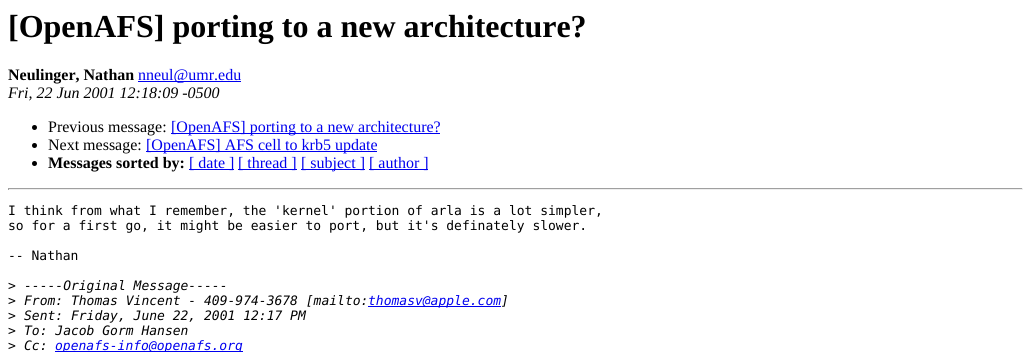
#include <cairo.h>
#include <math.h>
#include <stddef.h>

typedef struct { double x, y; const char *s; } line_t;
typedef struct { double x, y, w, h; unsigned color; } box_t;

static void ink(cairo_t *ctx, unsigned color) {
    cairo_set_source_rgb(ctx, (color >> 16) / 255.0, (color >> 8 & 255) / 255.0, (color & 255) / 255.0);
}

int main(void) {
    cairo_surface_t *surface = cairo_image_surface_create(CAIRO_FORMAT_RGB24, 1031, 352);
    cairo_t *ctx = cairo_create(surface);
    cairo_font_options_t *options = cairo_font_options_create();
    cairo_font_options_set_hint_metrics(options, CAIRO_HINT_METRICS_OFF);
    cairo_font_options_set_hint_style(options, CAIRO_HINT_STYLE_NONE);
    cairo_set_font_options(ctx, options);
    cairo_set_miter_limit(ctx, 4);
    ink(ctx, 0xFFFFFF);
    cairo_paint(ctx);
    cairo_select_font_face(ctx, "Liberation Serif", CAIRO_FONT_SLANT_NORMAL, CAIRO_FONT_WEIGHT_BOLD);
    cairo_set_font_size(ctx, 32);
    ink(ctx, 0x000000);
    cairo_move_to(ctx, 8, 37);
    cairo_show_text(ctx, "[OpenAFS] porting to a new architecture?");
    cairo_set_font_size(ctx, 16);
    cairo_move_to(ctx, 8, 80);
    cairo_show_text(ctx, "Neulinger, Nathan");
    ink(ctx, 0x0000EE);
    cairo_rectangle(ctx, 138, 81, 103, 1);
    cairo_fill(ctx);
    cairo_select_font_face(ctx, "Liberation Serif", CAIRO_FONT_SLANT_NORMAL, CAIRO_FONT_WEIGHT_NORMAL);
    cairo_move_to(ctx, 138, 80);
    cairo_show_text(ctx, "nneul@umr.edu");
    cairo_select_font_face(ctx, "Liberation Serif", CAIRO_FONT_SLANT_ITALIC, CAIRO_FONT_WEIGHT_NORMAL);
    ink(ctx, 0x000000);
    cairo_move_to(ctx, 8, 98);
    cairo_show_text(ctx, "Fri, 22 Jun 2001 12:18:09 -0500");
    cairo_new_path(ctx);
    cairo_arc(ctx, 34.5, 127.5, 2.5, 0, 2 * M_PI);
    cairo_fill(ctx);
    cairo_select_font_face(ctx, "Liberation Serif", CAIRO_FONT_SLANT_NORMAL, CAIRO_FONT_WEIGHT_NORMAL);
    cairo_move_to(ctx, 48, 132);
    cairo_show_text(ctx, "Previous message:");
    ink(ctx, 0x0000EE);
    cairo_rectangle(ctx, 171, 133, 269, 1);
    cairo_fill(ctx);
    cairo_move_to(ctx, 171, 132);
    cairo_show_text(ctx, "[OpenAFS] porting to a new architecture?");
    ink(ctx, 0x000000);
    cairo_new_path(ctx);
    cairo_arc(ctx, 34.5, 145.5, 2.5, 0, 2 * M_PI);
    cairo_fill(ctx);
    cairo_move_to(ctx, 48, 150);
    cairo_show_text(ctx, "Next message:");
    ink(ctx, 0x0000EE);
    cairo_rectangle(ctx, 146, 151, 231, 1);
    cairo_fill(ctx);
    cairo_move_to(ctx, 146, 150);
    cairo_show_text(ctx, "[OpenAFS] AFS cell to krb5 update");
    ink(ctx, 0x000000);
    cairo_new_path(ctx);
    cairo_arc(ctx, 34.5, 163.5, 2.5, 0, 2 * M_PI);
    cairo_fill(ctx);
    cairo_select_font_face(ctx, "Liberation Serif", CAIRO_FONT_SLANT_NORMAL, CAIRO_FONT_WEIGHT_BOLD);
    cairo_move_to(ctx, 48, 168);
    cairo_show_text(ctx, "Messages sorted by:");
    ink(ctx, 0x0000EE);
    cairo_rectangle(ctx, 189, 169, 45, 1);
    cairo_fill(ctx);
    cairo_select_font_face(ctx, "Liberation Serif", CAIRO_FONT_SLANT_NORMAL, CAIRO_FONT_WEIGHT_NORMAL);
    cairo_move_to(ctx, 189, 168);
    cairo_show_text(ctx, "[ date ]");
    cairo_rectangle(ctx, 238, 169, 59, 1);
    cairo_fill(ctx);
    cairo_move_to(ctx, 238, 168);
    cairo_show_text(ctx, "[ thread ]");
    cairo_rectangle(ctx, 301, 169, 64, 1);
    cairo_fill(ctx);
    cairo_move_to(ctx, 301, 168);
    cairo_show_text(ctx, "[ subject ]");
    cairo_rectangle(ctx, 369, 169, 59, 1);
    cairo_fill(ctx);
    cairo_move_to(ctx, 369, 168);
    cairo_show_text(ctx, "[ author ]");
    {
        static const box_t items[] = {
            {8, 188, 1015, 1, 0x9F9F9F},
            {1022, 188, 1, 2, 0xEEEEEE},
            {8, 189, 1015, 1, 0xEEEEEE},
            {8, 188, 1, 2, 0x9F9F9F},
        };
        for (size_t i = 0; i < sizeof items / sizeof *items; i++) {
            ink(ctx, items[i].color);
            cairo_rectangle(ctx, items[i].x, items[i].y, items[i].w, items[i].h);
            cairo_fill(ctx);
        }
    }
    cairo_select_font_face(ctx, "DejaVu Sans Mono", CAIRO_FONT_SLANT_NORMAL, CAIRO_FONT_WEIGHT_NORMAL);
    cairo_set_font_size(ctx, 13);
    ink(ctx, 0x000000);
    {
        static const line_t items[] = {
            {8, 215, "I think from what I remember, the 'kernel' portion of arla is a lot simpler,"},
            {8, 230, "so for a first go, it might be easier to port, but it's definately slower."},
            {8, 260, "-- Nathan"},
            {8, 290, ">"},
        };
        for (size_t i = 0; i < sizeof items / sizeof *items; i++) {
            cairo_move_to(ctx, items[i].x, items[i].y);
            cairo_show_text(ctx, items[i].s);
        }
    }
    cairo_select_font_face(ctx, "DejaVu Sans Mono", CAIRO_FONT_SLANT_ITALIC, CAIRO_FONT_WEIGHT_NORMAL);
    cairo_move_to(ctx, 24, 290);
    cairo_show_text(ctx, "-----Original Message-----");
    cairo_select_font_face(ctx, "DejaVu Sans Mono", CAIRO_FONT_SLANT_NORMAL, CAIRO_FONT_WEIGHT_NORMAL);
    cairo_move_to(ctx, 8, 305);
    cairo_show_text(ctx, ">");
    cairo_select_font_face(ctx, "DejaVu Sans Mono", CAIRO_FONT_SLANT_ITALIC, CAIRO_FONT_WEIGHT_NORMAL);
    cairo_move_to(ctx, 24, 305);
    cairo_show_text(ctx, "From: Thomas Vincent - 409-974-3678 [mailto:");
    ink(ctx, 0x0000EE);
    cairo_rectangle(ctx, 368, 306, 133, 1);
    cairo_fill(ctx);
    cairo_move_to(ctx, 368, 305);
    cairo_show_text(ctx, "thomasv@apple.com");
    ink(ctx, 0x000000);
    cairo_move_to(ctx, 501, 305);
    cairo_show_text(ctx, "]");
    cairo_select_font_face(ctx, "DejaVu Sans Mono", CAIRO_FONT_SLANT_NORMAL, CAIRO_FONT_WEIGHT_NORMAL);
    cairo_move_to(ctx, 8, 320);
    cairo_show_text(ctx, ">");
    cairo_select_font_face(ctx, "DejaVu Sans Mono", CAIRO_FONT_SLANT_ITALIC, CAIRO_FONT_WEIGHT_NORMAL);
    cairo_move_to(ctx, 24, 320);
    cairo_show_text(ctx, "Sent: Friday, June 22, 2001 12:17 PM");
    cairo_select_font_face(ctx, "DejaVu Sans Mono", CAIRO_FONT_SLANT_NORMAL, CAIRO_FONT_WEIGHT_NORMAL);
    cairo_move_to(ctx, 8, 335);
    cairo_show_text(ctx, ">");
    cairo_select_font_face(ctx, "DejaVu Sans Mono", CAIRO_FONT_SLANT_ITALIC, CAIRO_FONT_WEIGHT_NORMAL);
    cairo_move_to(ctx, 24, 335);
    cairo_show_text(ctx, "To: Jacob Gorm Hansen");
    cairo_select_font_face(ctx, "DejaVu Sans Mono", CAIRO_FONT_SLANT_NORMAL, CAIRO_FONT_WEIGHT_NORMAL);
    cairo_move_to(ctx, 8, 350);
    cairo_show_text(ctx, ">");
    cairo_select_font_face(ctx, "DejaVu Sans Mono", CAIRO_FONT_SLANT_ITALIC, CAIRO_FONT_WEIGHT_NORMAL);
    cairo_move_to(ctx, 24, 350);
    cairo_show_text(ctx, "Cc:");
    ink(ctx, 0x0000EE);
    cairo_rectangle(ctx, 55, 351, 188, 1);
    cairo_fill(ctx);
    cairo_move_to(ctx, 55, 350);
    cairo_show_text(ctx, "openafs-info@openafs.org");
    cairo_surface_write_to_png(surface, "image.png");
    cairo_font_options_destroy(options);
    cairo_destroy(ctx);
    cairo_surface_destroy(surface);
    return 0;
}
